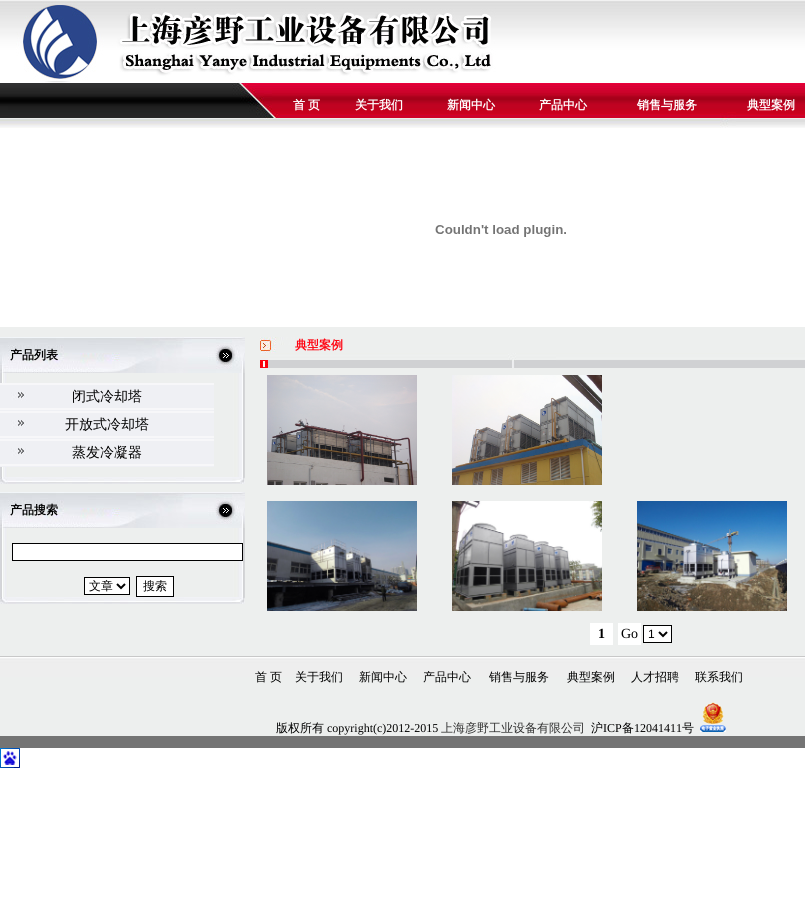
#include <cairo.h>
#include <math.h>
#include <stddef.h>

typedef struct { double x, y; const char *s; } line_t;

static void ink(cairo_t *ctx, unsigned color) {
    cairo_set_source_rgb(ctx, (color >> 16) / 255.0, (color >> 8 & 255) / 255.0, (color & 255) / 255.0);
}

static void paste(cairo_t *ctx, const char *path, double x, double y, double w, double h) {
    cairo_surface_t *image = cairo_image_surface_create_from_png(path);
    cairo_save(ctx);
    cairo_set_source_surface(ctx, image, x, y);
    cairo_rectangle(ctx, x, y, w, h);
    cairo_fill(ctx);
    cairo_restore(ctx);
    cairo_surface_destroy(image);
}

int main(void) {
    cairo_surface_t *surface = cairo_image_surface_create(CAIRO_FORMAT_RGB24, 805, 919);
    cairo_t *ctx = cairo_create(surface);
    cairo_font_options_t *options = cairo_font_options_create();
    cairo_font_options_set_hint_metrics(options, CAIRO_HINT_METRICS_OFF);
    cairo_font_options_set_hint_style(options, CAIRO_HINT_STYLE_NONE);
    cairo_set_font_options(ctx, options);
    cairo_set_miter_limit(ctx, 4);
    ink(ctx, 0xFFFFFF);
    cairo_paint(ctx);
    paste(ctx, "media/1.png", 0, 0, 805, 128);
    cairo_select_font_face(ctx, "WenQuanYi Zen Hei", CAIRO_FONT_SLANT_NORMAL, CAIRO_FONT_WEIGHT_BOLD);
    cairo_set_font_size(ctx, 12);
    ink(ctx, 0xFFFFFF);
    {
        static const line_t items[] = {
            {293, 109, "首"},
            {308, 109, "页"},
            {355, 109, "关于我们"},
            {447, 109, "新闻中心"},
            {539, 109, "产品中心"},
            {637, 109, "销售与服务"},
            {747, 109, "典型案例"},
        };
        for (size_t i = 0; i < sizeof items / sizeof *items; i++) {
            cairo_move_to(ctx, items[i].x, items[i].y);
            cairo_show_text(ctx, items[i].s);
        }
    }
    paste(ctx, "media/2.png", 435, 225, 131, 12);
    ink(ctx, 0xEDEFEE);
    cairo_rectangle(ctx, 0, 327, 805, 329);
    cairo_fill(ctx);
    paste(ctx, "media/3.png", 0, 337, 245, 36);
    ink(ctx, 0x000000);
    cairo_move_to(ctx, 10, 359);
    cairo_show_text(ctx, "产品列表");
    paste(ctx, "media/4.png", 0, 373, 245, 104);
    paste(ctx, "media/5.png", 0, 383, 214, 28);
    cairo_select_font_face(ctx, "WenQuanYi Zen Hei Medium", CAIRO_FONT_SLANT_NORMAL, CAIRO_FONT_WEIGHT_NORMAL);
    cairo_set_font_size(ctx, 14);
    cairo_move_to(ctx, 72, 401);
    cairo_show_text(ctx, "闭式冷却塔");
    paste(ctx, "media/5.png", 0, 411, 214, 28);
    cairo_move_to(ctx, 65, 429);
    cairo_show_text(ctx, "开放式冷却塔");
    paste(ctx, "media/5.png", 0, 439, 214, 28);
    cairo_move_to(ctx, 72, 457);
    cairo_show_text(ctx, "蒸发冷凝器");
    paste(ctx, "media/6.png", 0, 477, 245, 7);
    paste(ctx, "media/3.png", 0, 492, 245, 36);
    cairo_select_font_face(ctx, "WenQuanYi Zen Hei", CAIRO_FONT_SLANT_NORMAL, CAIRO_FONT_WEIGHT_BOLD);
    cairo_set_font_size(ctx, 12);
    cairo_move_to(ctx, 10, 514);
    cairo_show_text(ctx, "产品搜索");
    paste(ctx, "media/7.png", 0, 528, 245, 69);
    ink(ctx, 0xFFFFFF);
    cairo_rectangle(ctx, 12.5, 543.5, 230, 17);
    cairo_fill_preserve(ctx);
    ink(ctx, 0x000000);
    cairo_set_line_width(ctx, 1);
    cairo_stroke(ctx);
    ink(ctx, 0xFFFFFF);
    cairo_rectangle(ctx, 84.5, 577.5, 45, 17);
    cairo_fill_preserve(ctx);
    ink(ctx, 0x000000);
    cairo_stroke(ctx);
    cairo_new_path(ctx);
    cairo_move_to(ctx, 117, 584);
    cairo_line_to(ctx, 121, 588);
    cairo_line_to(ctx, 125, 584);
    cairo_set_line_width(ctx, 2);
    cairo_stroke(ctx);
    cairo_select_font_face(ctx, "WenQuanYi Zen Hei Medium", CAIRO_FONT_SLANT_NORMAL, CAIRO_FONT_WEIGHT_NORMAL);
    cairo_move_to(ctx, 89, 590);
    cairo_show_text(ctx, "文章");
    ink(ctx, 0xFFFFFF);
    cairo_rectangle(ctx, 136.5, 576.5, 37, 20);
    cairo_fill_preserve(ctx);
    ink(ctx, 0x000000);
    cairo_set_line_width(ctx, 1);
    cairo_stroke(ctx);
    cairo_move_to(ctx, 143, 590);
    cairo_show_text(ctx, "搜索");
    paste(ctx, "media/6.png", 0, 597, 245, 7);
    paste(ctx, "media/8.png", 260, 337, 545, 31);
    cairo_select_font_face(ctx, "WenQuanYi Zen Hei", CAIRO_FONT_SLANT_NORMAL, CAIRO_FONT_WEIGHT_BOLD);
    ink(ctx, 0xFF010F);
    cairo_move_to(ctx, 295, 349);
    cairo_show_text(ctx, "典型案例");
    paste(ctx, "media/9.png", 267, 375, 150, 110);
    paste(ctx, "media/10.png", 452, 375, 150, 110);
    paste(ctx, "media/11.png", 267, 501, 150, 110);
    paste(ctx, "media/12.png", 452, 501, 150, 110);
    paste(ctx, "media/13.png", 637, 501, 150, 110);
    ink(ctx, 0xFFFFFF);
    cairo_rectangle(ctx, 590, 623, 23, 22);
    cairo_fill(ctx);
    cairo_select_font_face(ctx, "Liberation Serif", CAIRO_FONT_SLANT_NORMAL, CAIRO_FONT_WEIGHT_BOLD);
    cairo_set_font_size(ctx, 14);
    ink(ctx, 0x000000);
    cairo_move_to(ctx, 598, 638);
    cairo_show_text(ctx, "1");
    ink(ctx, 0xFFFFFF);
    cairo_rectangle(ctx, 618, 623, 23, 22);
    cairo_fill(ctx);
    cairo_select_font_face(ctx, "Liberation Serif", CAIRO_FONT_SLANT_NORMAL, CAIRO_FONT_WEIGHT_NORMAL);
    ink(ctx, 0x000000);
    cairo_move_to(ctx, 621, 638);
    cairo_show_text(ctx, "Go");
    ink(ctx, 0xFFFFFF);
    cairo_rectangle(ctx, 643.5, 625.5, 28, 17);
    cairo_fill_preserve(ctx);
    ink(ctx, 0x000000);
    cairo_stroke(ctx);
    cairo_new_path(ctx);
    cairo_move_to(ctx, 659, 632);
    cairo_line_to(ctx, 663, 636);
    cairo_line_to(ctx, 667, 632);
    cairo_set_line_width(ctx, 2);
    cairo_stroke(ctx);
    cairo_select_font_face(ctx, "Liberation Sans", CAIRO_FONT_SLANT_NORMAL, CAIRO_FONT_WEIGHT_NORMAL);
    cairo_set_font_size(ctx, 12);
    cairo_move_to(ctx, 648, 638);
    cairo_show_text(ctx, "1");
    paste(ctx, "media/14.png", 0, 656, 805, 92);
    cairo_select_font_face(ctx, "WenQuanYi Zen Hei Medium", CAIRO_FONT_SLANT_NORMAL, CAIRO_FONT_WEIGHT_NORMAL);
    {
        static const line_t items[] = {
            {255, 681, "首"},
            {270, 681, "页"},
            {295, 681, "关于我们"},
            {359, 681, "新闻中心"},
            {423, 681, "产品中心"},
            {489, 681, "销售与服务"},
            {567, 681, "典型案例"},
            {631, 681, "人才招聘"},
            {695, 681, "联系我们"},
            {276, 732, "版权所有"},
        };
        for (size_t i = 0; i < sizeof items / sizeof *items; i++) {
            cairo_move_to(ctx, items[i].x, items[i].y);
            cairo_show_text(ctx, items[i].s);
        }
    }
    cairo_select_font_face(ctx, "Liberation Serif", CAIRO_FONT_SLANT_NORMAL, CAIRO_FONT_WEIGHT_NORMAL);
    cairo_move_to(ctx, 327, 732);
    cairo_show_text(ctx, "copyright(c)2012-2015");
    cairo_select_font_face(ctx, "WenQuanYi Zen Hei Medium", CAIRO_FONT_SLANT_NORMAL, CAIRO_FONT_WEIGHT_NORMAL);
    ink(ctx, 0x303030);
    cairo_move_to(ctx, 441, 732);
    cairo_show_text(ctx, "上海彦野工业设备有限公司");
    ink(ctx, 0x000000);
    cairo_move_to(ctx, 591, 732);
    cairo_show_text(ctx, "沪");
    cairo_select_font_face(ctx, "Liberation Serif", CAIRO_FONT_SLANT_NORMAL, CAIRO_FONT_WEIGHT_NORMAL);
    cairo_move_to(ctx, 603, 732);
    cairo_show_text(ctx, "ICP");
    cairo_select_font_face(ctx, "WenQuanYi Zen Hei Medium", CAIRO_FONT_SLANT_NORMAL, CAIRO_FONT_WEIGHT_NORMAL);
    cairo_move_to(ctx, 622, 732);
    cairo_show_text(ctx, "备");
    cairo_select_font_face(ctx, "Liberation Serif", CAIRO_FONT_SLANT_NORMAL, CAIRO_FONT_WEIGHT_NORMAL);
    cairo_move_to(ctx, 634, 732);
    cairo_show_text(ctx, "12041411");
    cairo_select_font_face(ctx, "WenQuanYi Zen Hei Medium", CAIRO_FONT_SLANT_NORMAL, CAIRO_FONT_WEIGHT_NORMAL);
    cairo_move_to(ctx, 682, 732);
    cairo_show_text(ctx, "号");
    paste(ctx, "media/15.png", 700, 702, 26, 30);
    paste(ctx, "media/16.png", 0, 748, 20, 20);
    cairo_surface_write_to_png(surface, "image.png");
    cairo_font_options_destroy(options);
    cairo_destroy(ctx);
    cairo_surface_destroy(surface);
    return 0;
}
